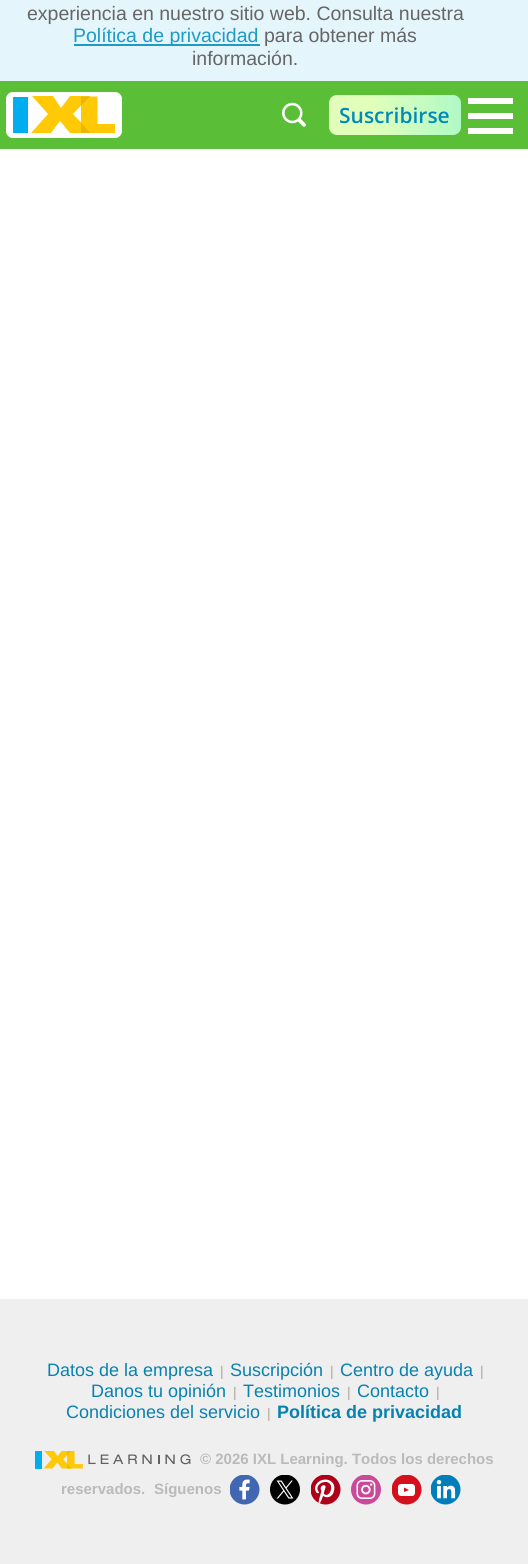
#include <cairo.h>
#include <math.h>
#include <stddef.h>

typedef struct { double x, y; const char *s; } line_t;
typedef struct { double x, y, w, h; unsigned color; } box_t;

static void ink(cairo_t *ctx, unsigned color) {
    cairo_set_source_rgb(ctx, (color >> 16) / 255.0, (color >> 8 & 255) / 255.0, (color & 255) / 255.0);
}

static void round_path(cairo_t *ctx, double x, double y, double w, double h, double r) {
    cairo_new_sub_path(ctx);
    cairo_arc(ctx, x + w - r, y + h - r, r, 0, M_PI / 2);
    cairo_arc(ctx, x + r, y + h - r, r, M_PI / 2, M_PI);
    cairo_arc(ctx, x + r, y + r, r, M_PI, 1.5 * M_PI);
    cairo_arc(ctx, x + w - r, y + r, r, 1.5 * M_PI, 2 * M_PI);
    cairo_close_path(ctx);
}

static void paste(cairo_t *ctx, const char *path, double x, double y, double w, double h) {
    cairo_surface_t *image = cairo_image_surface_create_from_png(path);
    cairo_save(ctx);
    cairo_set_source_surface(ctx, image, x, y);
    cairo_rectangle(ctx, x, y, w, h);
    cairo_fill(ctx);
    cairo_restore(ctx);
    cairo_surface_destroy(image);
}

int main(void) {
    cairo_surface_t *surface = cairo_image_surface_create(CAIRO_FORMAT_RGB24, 528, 1564);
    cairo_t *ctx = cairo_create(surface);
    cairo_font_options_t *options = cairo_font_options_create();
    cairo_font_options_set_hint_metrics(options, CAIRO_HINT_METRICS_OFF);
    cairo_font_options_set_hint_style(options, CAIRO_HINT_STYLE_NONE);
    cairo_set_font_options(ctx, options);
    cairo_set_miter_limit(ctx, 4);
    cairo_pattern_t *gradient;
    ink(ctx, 0xFFFFFF);
    cairo_paint(ctx);
    ink(ctx, 0xE4F5FC);
    cairo_rectangle(ctx, 0, 0, 528, 81);
    cairo_fill(ctx);
    cairo_select_font_face(ctx, "Liberation Sans", CAIRO_FONT_SLANT_NORMAL, CAIRO_FONT_WEIGHT_NORMAL);
    cairo_set_font_size(ctx, 19.5);
    ink(ctx, 0x666666);
    cairo_move_to(ctx, 27, 20);
    cairo_show_text(ctx, "experiencia en nuestro sitio web. Consulta nuestra");
    ink(ctx, 0x1F9AC7);
    cairo_rectangle(ctx, 74, 44, 186, 2);
    cairo_fill(ctx);
    cairo_move_to(ctx, 73, 42);
    cairo_show_text(ctx, "Política de privacidad");
    ink(ctx, 0x666666);
    cairo_move_to(ctx, 264, 42);
    cairo_show_text(ctx, "para obtener más");
    cairo_move_to(ctx, 192, 65);
    cairo_show_text(ctx, "información.");
    ink(ctx, 0x5ABE37);
    cairo_rectangle(ctx, 0, 81, 528, 68);
    cairo_fill(ctx);
    ink(ctx, 0xFFFFFF);
    round_path(ctx, 6, 92, 116, 46, 7);
    cairo_fill(ctx);
    ink(ctx, 0xFFCA05);
    cairo_set_fill_rule(ctx, CAIRO_FILL_RULE_EVEN_ODD);
    cairo_new_path(ctx);
    cairo_move_to(ctx, 81, 133);
    cairo_line_to(ctx, 115, 133);
    cairo_line_to(ctx, 115, 124);
    cairo_line_to(ctx, 97.5, 124);
    cairo_line_to(ctx, 97.5, 96.5);
    cairo_line_to(ctx, 81, 96.5);
    cairo_close_path(ctx);
    cairo_fill(ctx);
    cairo_new_path(ctx);
    cairo_move_to(ctx, 31, 133);
    cairo_line_to(ctx, 51, 133);
    cairo_line_to(ctx, 60, 121);
    cairo_line_to(ctx, 70, 133);
    cairo_line_to(ctx, 91, 133);
    cairo_line_to(ctx, 73, 114);
    cairo_line_to(ctx, 90, 96);
    cairo_line_to(ctx, 70, 96);
    cairo_line_to(ctx, 61, 108);
    cairo_line_to(ctx, 53, 96);
    cairo_line_to(ctx, 32, 96);
    cairo_line_to(ctx, 48, 114);
    cairo_close_path(ctx);
    cairo_fill(ctx);
    ink(ctx, 0xE7B809);
    cairo_new_path(ctx);
    cairo_move_to(ctx, 81, 133);
    cairo_line_to(ctx, 90.5, 133);
    cairo_line_to(ctx, 81, 122.5);
    cairo_close_path(ctx);
    cairo_move_to(ctx, 90, 96.5);
    cairo_line_to(ctx, 81, 96.5);
    cairo_line_to(ctx, 81, 106);
    cairo_close_path(ctx);
    cairo_fill(ctx);
    ink(ctx, 0x00AEEF);
    cairo_rectangle(ctx, 13, 97, 15, 36);
    cairo_fill(ctx);
    paste(ctx, "media/1.png", 282, 102, 24, 25);
    gradient = cairo_pattern_create_linear(328, 116, 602, 109);
    cairo_pattern_add_color_stop_rgba(gradient, 0.16, 0.882, 1, 0.733, 1);
    cairo_pattern_add_color_stop_rgba(gradient, 1, 0.388, 0.937, 0.839, 1);
    cairo_set_source(ctx, gradient);
    cairo_pattern_destroy(gradient);
    round_path(ctx, 329, 95, 132, 40, 8);
    cairo_fill(ctx);
    cairo_select_font_face(ctx, "Open Sans SemiBold", CAIRO_FONT_SLANT_NORMAL, CAIRO_FONT_WEIGHT_NORMAL);
    cairo_set_font_size(ctx, 21);
    ink(ctx, 0x0289BB);
    cairo_move_to(ctx, 339, 123);
    cairo_show_text(ctx, "Suscribirse");
    {
        static const box_t items[] = {
            {468, 128, 45, 6, 0xFFFFFF},
            {468, 113, 45, 6, 0xFFFFFF},
            {468, 98, 45, 6, 0xFFFFFF},
            {0, 1299, 528, 265, 0xEFEFEF},
        };
        for (size_t i = 0; i < sizeof items / sizeof *items; i++) {
            ink(ctx, items[i].color);
            cairo_rectangle(ctx, items[i].x, items[i].y, items[i].w, items[i].h);
            cairo_fill(ctx);
        }
    }
    cairo_select_font_face(ctx, "Liberation Sans", CAIRO_FONT_SLANT_NORMAL, CAIRO_FONT_WEIGHT_NORMAL);
    cairo_set_font_size(ctx, 18);
    ink(ctx, 0x0782B0);
    cairo_move_to(ctx, 47, 1376);
    cairo_show_text(ctx, "Datos de la empresa");
    cairo_set_font_size(ctx, 14);
    ink(ctx, 0xACA899);
    cairo_move_to(ctx, 220, 1376);
    cairo_show_text(ctx, "|");
    cairo_set_font_size(ctx, 18);
    ink(ctx, 0x0782B0);
    cairo_move_to(ctx, 230, 1376);
    cairo_show_text(ctx, "Suscripción");
    cairo_set_font_size(ctx, 14);
    ink(ctx, 0xACA899);
    cairo_move_to(ctx, 330, 1376);
    cairo_show_text(ctx, "|");
    cairo_set_font_size(ctx, 18);
    ink(ctx, 0x0782B0);
    cairo_move_to(ctx, 340, 1376);
    cairo_show_text(ctx, "Centro de ayuda");
    cairo_set_font_size(ctx, 14);
    ink(ctx, 0xACA899);
    cairo_move_to(ctx, 480, 1376);
    cairo_show_text(ctx, "|");
    cairo_set_font_size(ctx, 18);
    ink(ctx, 0x0782B0);
    cairo_move_to(ctx, 91, 1397);
    cairo_show_text(ctx, "Danos tu opinión");
    cairo_set_font_size(ctx, 14);
    ink(ctx, 0xACA899);
    cairo_move_to(ctx, 233, 1397);
    cairo_show_text(ctx, "|");
    cairo_set_font_size(ctx, 18);
    ink(ctx, 0x0782B0);
    cairo_move_to(ctx, 243, 1397);
    cairo_show_text(ctx, "Testimonios");
    cairo_set_font_size(ctx, 14);
    ink(ctx, 0xACA899);
    cairo_move_to(ctx, 347, 1397);
    cairo_show_text(ctx, "|");
    cairo_set_font_size(ctx, 18);
    ink(ctx, 0x0782B0);
    cairo_move_to(ctx, 357, 1397);
    cairo_show_text(ctx, "Contacto");
    cairo_set_font_size(ctx, 14);
    ink(ctx, 0xACA899);
    cairo_move_to(ctx, 436, 1397);
    cairo_show_text(ctx, "|");
    cairo_set_font_size(ctx, 18);
    ink(ctx, 0x0782B0);
    cairo_move_to(ctx, 66, 1418);
    cairo_show_text(ctx, "Condiciones del servicio");
    cairo_set_font_size(ctx, 14);
    ink(ctx, 0xACA899);
    cairo_move_to(ctx, 267, 1418);
    cairo_show_text(ctx, "|");
    cairo_select_font_face(ctx, "Liberation Sans", CAIRO_FONT_SLANT_NORMAL, CAIRO_FONT_WEIGHT_BOLD);
    cairo_set_font_size(ctx, 18);
    ink(ctx, 0x0782B0);
    cairo_move_to(ctx, 277, 1418);
    cairo_show_text(ctx, "Política de privacidad");
    paste(ctx, "media/2.png", 35, 1451, 156, 18);
    cairo_set_font_size(ctx, 15);
    ink(ctx, 0xBABABA);
    {
        static const line_t items[] = {
            {200, 1464, "© 2026 IXL Learning. Todos los derechos"},
            {61, 1494, "reservados."},
            {154, 1494, "Síguenos"},
        };
        for (size_t i = 0; i < sizeof items / sizeof *items; i++) {
            cairo_move_to(ctx, items[i].x, items[i].y);
            cairo_show_text(ctx, items[i].s);
        }
    }
    paste(ctx, "media/3.png", 230, 1475, 30, 30);
    paste(ctx, "media/4.png", 270, 1475, 30, 30);
    paste(ctx, "media/5.png", 311, 1475, 30, 30);
    paste(ctx, "media/6.png", 351, 1475, 30, 30);
    cairo_save(ctx);
    cairo_set_fill_rule(ctx, CAIRO_FILL_RULE_WINDING);
    cairo_rectangle(ctx, 392, 1475, 30, 30);
    cairo_clip(ctx);
    ink(ctx, 0xD4101D);
    cairo_arc(ctx, 406.5, 1489.5, 15, 0, 2 * M_PI);
    cairo_fill(ctx);
    cairo_restore(ctx);
    ink(ctx, 0xFFFFFF);
    round_path(ctx, 398, 1484, 17, 12, 3);
    cairo_fill(ctx);
    ink(ctx, 0xD4101D);
    cairo_set_fill_rule(ctx, CAIRO_FILL_RULE_WINDING);
    cairo_new_path(ctx);
    cairo_move_to(ctx, 404, 1487.5);
    cairo_line_to(ctx, 404, 1492);
    cairo_line_to(ctx, 409, 1490);
    cairo_close_path(ctx);
    cairo_fill(ctx);
    paste(ctx, "media/7.png", 431, 1475, 30, 30);
    cairo_surface_write_to_png(surface, "image.png");
    cairo_font_options_destroy(options);
    cairo_destroy(ctx);
    cairo_surface_destroy(surface);
    return 0;
}
